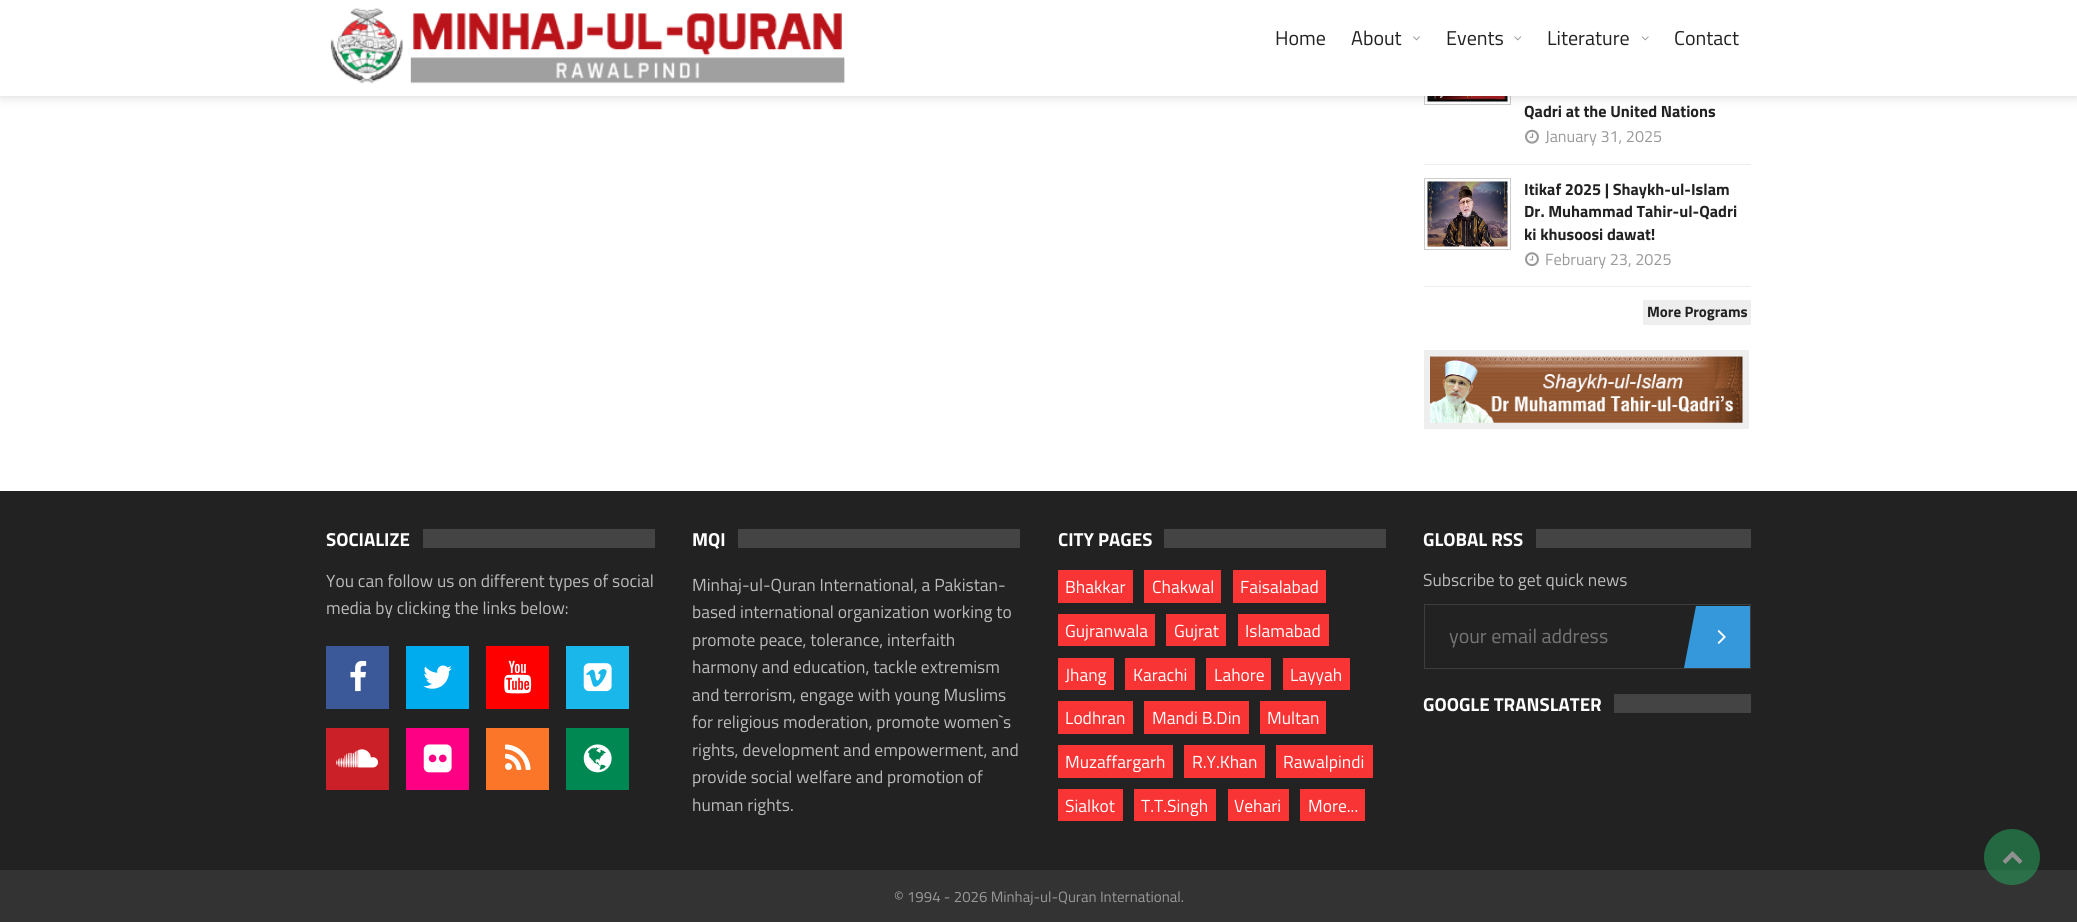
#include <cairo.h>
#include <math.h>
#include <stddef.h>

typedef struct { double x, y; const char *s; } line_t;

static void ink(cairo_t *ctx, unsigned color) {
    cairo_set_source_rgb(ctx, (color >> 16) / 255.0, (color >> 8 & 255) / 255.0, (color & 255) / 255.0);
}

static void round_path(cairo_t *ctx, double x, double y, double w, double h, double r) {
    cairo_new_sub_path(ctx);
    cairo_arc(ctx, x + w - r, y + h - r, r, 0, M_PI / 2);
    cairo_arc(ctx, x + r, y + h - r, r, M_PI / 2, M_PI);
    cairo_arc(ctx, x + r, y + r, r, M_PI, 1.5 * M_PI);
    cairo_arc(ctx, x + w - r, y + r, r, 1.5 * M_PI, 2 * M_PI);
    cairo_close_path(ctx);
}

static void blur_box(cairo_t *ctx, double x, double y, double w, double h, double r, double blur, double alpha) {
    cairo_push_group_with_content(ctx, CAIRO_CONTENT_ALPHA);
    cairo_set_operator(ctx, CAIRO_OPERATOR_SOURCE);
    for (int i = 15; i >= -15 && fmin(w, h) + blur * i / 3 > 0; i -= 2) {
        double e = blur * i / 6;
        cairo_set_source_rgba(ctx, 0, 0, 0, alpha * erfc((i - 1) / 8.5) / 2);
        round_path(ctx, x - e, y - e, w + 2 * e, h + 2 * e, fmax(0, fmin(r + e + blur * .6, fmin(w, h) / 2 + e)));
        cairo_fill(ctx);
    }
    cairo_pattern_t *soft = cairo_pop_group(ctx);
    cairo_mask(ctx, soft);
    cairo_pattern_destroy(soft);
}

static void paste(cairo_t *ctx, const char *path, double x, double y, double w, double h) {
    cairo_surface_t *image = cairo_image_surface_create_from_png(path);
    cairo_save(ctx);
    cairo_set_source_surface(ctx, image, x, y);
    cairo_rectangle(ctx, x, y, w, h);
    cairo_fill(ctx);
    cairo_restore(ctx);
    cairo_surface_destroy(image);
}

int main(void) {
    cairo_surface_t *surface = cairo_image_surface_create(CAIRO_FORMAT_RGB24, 2077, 922);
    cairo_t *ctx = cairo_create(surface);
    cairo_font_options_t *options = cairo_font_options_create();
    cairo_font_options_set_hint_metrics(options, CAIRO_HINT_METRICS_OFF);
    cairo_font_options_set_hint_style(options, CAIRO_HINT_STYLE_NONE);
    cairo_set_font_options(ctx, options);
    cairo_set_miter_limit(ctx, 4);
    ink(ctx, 0xFFFFFF);
    cairo_paint(ctx);
    cairo_rectangle(ctx, 1424.5, 33.5, 86, 71);
    ink(ctx, 0xCCCCCC);
    cairo_set_line_width(ctx, 1);
    cairo_stroke(ctx);
    paste(ctx, "media/5.png", 1427, 96, 81, 6);
    ink(ctx, 0x222222);
    blur_box(ctx, 0, 0, 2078, 96, 0, 6, 0.2);
    ink(ctx, 0xFFFFFF);
    cairo_rectangle(ctx, 0, 0, 2077, 96);
    cairo_fill(ctx);
    paste(ctx, "media/1.png", 330, 8, 515, 76);
    cairo_select_font_face(ctx, "Titillium Web", CAIRO_FONT_SLANT_NORMAL, CAIRO_FONT_WEIGHT_NORMAL);
    cairo_set_font_size(ctx, 20);
    ink(ctx, 0x222222);
    cairo_move_to(ctx, 1275, 45);
    cairo_show_text(ctx, "Home");
    cairo_move_to(ctx, 1351, 45);
    cairo_show_text(ctx, "About");
    paste(ctx, "media/2.png", 1413, 36, 7, 5);
    cairo_move_to(ctx, 1446, 45);
    cairo_show_text(ctx, "Events");
    paste(ctx, "media/3.png", 1514, 36, 8, 5);
    cairo_move_to(ctx, 1547, 45);
    cairo_show_text(ctx, "Literature");
    paste(ctx, "media/4.png", 1641, 36, 8, 5);
    cairo_move_to(ctx, 1674, 45);
    cairo_show_text(ctx, "Contact");
    ink(ctx, 0xEEEEEE);
    cairo_rectangle(ctx, 1424, 164, 327, 1);
    cairo_fill(ctx);
    cairo_select_font_face(ctx, "Titillium Web", CAIRO_FONT_SLANT_NORMAL, CAIRO_FONT_WEIGHT_BOLD);
    cairo_set_font_size(ctx, 16.25);
    ink(ctx, 0x222222);
    cairo_move_to(ctx, 1524, 117);
    cairo_show_text(ctx, "Qadri at the United Nations");
    paste(ctx, "media/6.png", 1525, 129, 14, 15);
    cairo_select_font_face(ctx, "Titillium Web", CAIRO_FONT_SLANT_NORMAL, CAIRO_FONT_WEIGHT_NORMAL);
    ink(ctx, 0x999999);
    cairo_move_to(ctx, 1545, 142);
    cairo_show_text(ctx, "January 31, 2025");
    ink(ctx, 0xEEEEEE);
    cairo_rectangle(ctx, 1424, 286, 327, 1);
    cairo_fill(ctx);
    cairo_rectangle(ctx, 1424.5, 178.5, 86, 71);
    ink(ctx, 0xCCCCCC);
    cairo_stroke(ctx);
    paste(ctx, "media/7.png", 1427, 181, 81, 66);
    cairo_select_font_face(ctx, "Titillium Web", CAIRO_FONT_SLANT_NORMAL, CAIRO_FONT_WEIGHT_BOLD);
    ink(ctx, 0x222222);
    {
        static const line_t items[] = {
            {1524, 195, "Itikaf 2025 | Shaykh-ul-Islam"},
            {1524, 217, "Dr. Muhammad Tahir-ul-Qadri"},
            {1524, 240, "ki khusoosi dawat!"},
        };
        for (size_t i = 0; i < sizeof items / sizeof *items; i++) {
            cairo_move_to(ctx, items[i].x, items[i].y);
            cairo_show_text(ctx, items[i].s);
        }
    }
    paste(ctx, "media/8.png", 1525, 252, 14, 15);
    cairo_select_font_face(ctx, "Titillium Web", CAIRO_FONT_SLANT_NORMAL, CAIRO_FONT_WEIGHT_NORMAL);
    ink(ctx, 0x999999);
    cairo_move_to(ctx, 1545, 265);
    cairo_show_text(ctx, "February 23, 2025");
    ink(ctx, 0xEEEEEE);
    cairo_rectangle(ctx, 1643, 300, 108, 25);
    cairo_fill(ctx);
    cairo_select_font_face(ctx, "Titillium Web", CAIRO_FONT_SLANT_NORMAL, CAIRO_FONT_WEIGHT_BOLD);
    cairo_set_font_size(ctx, 15);
    ink(ctx, 0x222222);
    cairo_move_to(ctx, 1647, 317);
    cairo_show_text(ctx, "More Programs");
    cairo_rectangle(ctx, 1427, 353, 319, 73);
    ink(ctx, 0xEEEEEE);
    cairo_set_line_width(ctx, 6);
    cairo_stroke(ctx);
    paste(ctx, "media/9.png", 1430, 356, 313, 67);
    ink(ctx, 0x222222);
    cairo_rectangle(ctx, 0, 491, 2077, 379);
    cairo_fill(ctx);
    ink(ctx, 0x444444);
    cairo_rectangle(ctx, 423, 529, 232, 19);
    cairo_fill(ctx);
    cairo_set_font_size(ctx, 18.75);
    ink(ctx, 0xFFFFFF);
    cairo_move_to(ctx, 326, 546);
    cairo_show_text(ctx, "SOCIALIZE");
    cairo_select_font_face(ctx, "Titillium Web", CAIRO_FONT_SLANT_NORMAL, CAIRO_FONT_WEIGHT_NORMAL);
    cairo_set_font_size(ctx, 17.5);
    ink(ctx, 0xBBBBBB);
    cairo_move_to(ctx, 326, 587);
    cairo_show_text(ctx, "You can follow us on different types of social");
    cairo_move_to(ctx, 326, 614);
    cairo_show_text(ctx, "media by clicking the links below:");
    ink(ctx, 0x3B5998);
    cairo_rectangle(ctx, 326, 646, 63, 63);
    cairo_fill(ctx);
    paste(ctx, "media/10.png", 350, 660, 17, 32);
    ink(ctx, 0x00ACED);
    cairo_rectangle(ctx, 406, 646, 63, 63);
    cairo_fill(ctx);
    paste(ctx, "media/11.png", 423, 665, 29, 24);
    ink(ctx, 0xFF0000);
    cairo_rectangle(ctx, 486, 646, 63, 63);
    cairo_fill(ctx);
    paste(ctx, "media/12.png", 504, 660, 28, 34);
    ink(ctx, 0x1AB7EA);
    cairo_rectangle(ctx, 566, 646, 63, 63);
    cairo_fill(ctx);
    paste(ctx, "media/13.png", 583, 663, 29, 29);
    ink(ctx, 0xCB2027);
    cairo_rectangle(ctx, 326, 728, 63, 62);
    cairo_fill(ctx);
    paste(ctx, "media/14.png", 336, 749, 42, 19);
    ink(ctx, 0xFE0084);
    cairo_rectangle(ctx, 406, 728, 63, 62);
    cairo_fill(ctx);
    paste(ctx, "media/15.png", 423, 744, 29, 29);
    ink(ctx, 0xFB7629);
    cairo_rectangle(ctx, 486, 728, 63, 62);
    cairo_fill(ctx);
    paste(ctx, "media/16.png", 505, 744, 26, 26);
    ink(ctx, 0x008853);
    cairo_rectangle(ctx, 566, 728, 63, 62);
    cairo_fill(ctx);
    paste(ctx, "media/17.png", 583, 744, 29, 29);
    ink(ctx, 0x444444);
    cairo_rectangle(ctx, 738, 529, 282, 19);
    cairo_fill(ctx);
    cairo_select_font_face(ctx, "Titillium Web", CAIRO_FONT_SLANT_NORMAL, CAIRO_FONT_WEIGHT_BOLD);
    cairo_set_font_size(ctx, 18.75);
    ink(ctx, 0xFFFFFF);
    cairo_move_to(ctx, 692, 546);
    cairo_show_text(ctx, "MQI");
    cairo_select_font_face(ctx, "Titillium Web", CAIRO_FONT_SLANT_NORMAL, CAIRO_FONT_WEIGHT_NORMAL);
    cairo_set_font_size(ctx, 17.5);
    ink(ctx, 0xBBBBBB);
    {
        static const line_t items[] = {
            {692, 591, "Minhaj-ul-Quran International, a Pakistan-"},
            {692, 618, "based international organization working to"},
            {692, 646, "promote peace, tolerance, interfaith"},
            {692, 673, "harmony and education, tackle extremism"},
            {692, 701, "and terrorism, engage with young Muslims"},
            {692, 728, "for religious moderation, promote women`s"},
            {692, 756, "rights, development and empowerment, and"},
            {692, 783, "provide social welfare and promotion of"},
            {692, 811, "human rights."},
        };
        for (size_t i = 0; i < sizeof items / sizeof *items; i++) {
            cairo_move_to(ctx, items[i].x, items[i].y);
            cairo_show_text(ctx, items[i].s);
        }
    }
    ink(ctx, 0x444444);
    cairo_rectangle(ctx, 1164, 529, 222, 19);
    cairo_fill(ctx);
    cairo_select_font_face(ctx, "Titillium Web", CAIRO_FONT_SLANT_NORMAL, CAIRO_FONT_WEIGHT_BOLD);
    cairo_set_font_size(ctx, 18.75);
    ink(ctx, 0xFFFFFF);
    cairo_move_to(ctx, 1058, 546);
    cairo_show_text(ctx, "CITY PAGES");
    ink(ctx, 0xF83434);
    cairo_rectangle(ctx, 1058, 570, 75, 33);
    cairo_fill(ctx);
    cairo_select_font_face(ctx, "Titillium Web", CAIRO_FONT_SLANT_NORMAL, CAIRO_FONT_WEIGHT_NORMAL);
    cairo_set_font_size(ctx, 17.5);
    ink(ctx, 0xFFFFFF);
    cairo_move_to(ctx, 1065, 593);
    cairo_show_text(ctx, "Bhakkar");
    ink(ctx, 0xF83434);
    cairo_rectangle(ctx, 1144, 570, 77, 33);
    cairo_fill(ctx);
    ink(ctx, 0xFFFFFF);
    cairo_move_to(ctx, 1152, 593);
    cairo_show_text(ctx, "Chakwal");
    ink(ctx, 0xF83434);
    cairo_rectangle(ctx, 1233, 570, 93, 33);
    cairo_fill(ctx);
    ink(ctx, 0xFFFFFF);
    cairo_move_to(ctx, 1240, 593);
    cairo_show_text(ctx, "Faisalabad");
    ink(ctx, 0xF83434);
    cairo_rectangle(ctx, 1058, 614, 97, 32);
    cairo_fill(ctx);
    ink(ctx, 0xFFFFFF);
    cairo_move_to(ctx, 1065, 637);
    cairo_show_text(ctx, "Gujranwala");
    ink(ctx, 0xF83434);
    cairo_rectangle(ctx, 1166, 614, 60, 32);
    cairo_fill(ctx);
    ink(ctx, 0xFFFFFF);
    cairo_move_to(ctx, 1174, 637);
    cairo_show_text(ctx, "Gujrat");
    ink(ctx, 0xF83434);
    cairo_rectangle(ctx, 1238, 614, 91, 32);
    cairo_fill(ctx);
    ink(ctx, 0xFFFFFF);
    cairo_move_to(ctx, 1245, 637);
    cairo_show_text(ctx, "Islamabad");
    ink(ctx, 0xF83434);
    cairo_rectangle(ctx, 1058, 658, 56, 32);
    cairo_fill(ctx);
    ink(ctx, 0xFFFFFF);
    cairo_move_to(ctx, 1065, 681);
    cairo_show_text(ctx, "Jhang");
    ink(ctx, 0xF83434);
    cairo_rectangle(ctx, 1125, 658, 70, 32);
    cairo_fill(ctx);
    ink(ctx, 0xFFFFFF);
    cairo_move_to(ctx, 1133, 681);
    cairo_show_text(ctx, "Karachi");
    ink(ctx, 0xF83434);
    cairo_rectangle(ctx, 1206, 658, 65, 32);
    cairo_fill(ctx);
    ink(ctx, 0xFFFFFF);
    cairo_move_to(ctx, 1214, 681);
    cairo_show_text(ctx, "Lahore");
    ink(ctx, 0xF83434);
    cairo_rectangle(ctx, 1283, 658, 67, 32);
    cairo_fill(ctx);
    ink(ctx, 0xFFFFFF);
    cairo_move_to(ctx, 1290, 681);
    cairo_show_text(ctx, "Layyah");
    ink(ctx, 0xF83434);
    cairo_rectangle(ctx, 1058, 701, 75, 33);
    cairo_fill(ctx);
    ink(ctx, 0xFFFFFF);
    cairo_move_to(ctx, 1065, 724);
    cairo_show_text(ctx, "Lodhran");
    ink(ctx, 0xF83434);
    cairo_rectangle(ctx, 1144, 701, 105, 33);
    cairo_fill(ctx);
    ink(ctx, 0xFFFFFF);
    cairo_move_to(ctx, 1152, 724);
    cairo_show_text(ctx, "Mandi B.Din");
    ink(ctx, 0xF83434);
    cairo_rectangle(ctx, 1260, 701, 66, 33);
    cairo_fill(ctx);
    ink(ctx, 0xFFFFFF);
    cairo_move_to(ctx, 1267, 724);
    cairo_show_text(ctx, "Multan");
    ink(ctx, 0xF83434);
    cairo_rectangle(ctx, 1058, 745, 115, 33);
    cairo_fill(ctx);
    ink(ctx, 0xFFFFFF);
    cairo_move_to(ctx, 1065, 768);
    cairo_show_text(ctx, "Muzaffargarh");
    ink(ctx, 0xF83434);
    cairo_rectangle(ctx, 1184, 745, 81, 33);
    cairo_fill(ctx);
    ink(ctx, 0xFFFFFF);
    cairo_move_to(ctx, 1192, 768);
    cairo_show_text(ctx, "R.Y.Khan");
    ink(ctx, 0xF83434);
    cairo_rectangle(ctx, 1276, 745, 97, 33);
    cairo_fill(ctx);
    ink(ctx, 0xFFFFFF);
    cairo_move_to(ctx, 1283, 768);
    cairo_show_text(ctx, "Rawalpindi");
    ink(ctx, 0xF83434);
    cairo_rectangle(ctx, 1058, 789, 65, 32);
    cairo_fill(ctx);
    ink(ctx, 0xFFFFFF);
    cairo_move_to(ctx, 1065, 812);
    cairo_show_text(ctx, "Sialkot");
    ink(ctx, 0xF83434);
    cairo_rectangle(ctx, 1134, 789, 82, 32);
    cairo_fill(ctx);
    ink(ctx, 0xFFFFFF);
    cairo_move_to(ctx, 1141, 812);
    cairo_show_text(ctx, "T.T.Singh");
    ink(ctx, 0xF83434);
    cairo_rectangle(ctx, 1228, 789, 61, 32);
    cairo_fill(ctx);
    ink(ctx, 0xFFFFFF);
    cairo_move_to(ctx, 1234, 812);
    cairo_show_text(ctx, "Vehari");
    ink(ctx, 0xF83434);
    cairo_rectangle(ctx, 1300, 789, 65, 32);
    cairo_fill(ctx);
    ink(ctx, 0xFFFFFF);
    cairo_move_to(ctx, 1308, 812);
    cairo_show_text(ctx, "More...");
    ink(ctx, 0x444444);
    cairo_rectangle(ctx, 1536, 529, 215, 19);
    cairo_fill(ctx);
    cairo_select_font_face(ctx, "Titillium Web", CAIRO_FONT_SLANT_NORMAL, CAIRO_FONT_WEIGHT_BOLD);
    cairo_set_font_size(ctx, 18.75);
    ink(ctx, 0xFFFFFF);
    cairo_move_to(ctx, 1423, 546);
    cairo_show_text(ctx, "GLOBAL RSS");
    cairo_select_font_face(ctx, "Titillium Web", CAIRO_FONT_SLANT_NORMAL, CAIRO_FONT_WEIGHT_NORMAL);
    cairo_set_font_size(ctx, 17.5);
    ink(ctx, 0xBBBBBB);
    cairo_move_to(ctx, 1423, 586);
    cairo_show_text(ctx, "Subscribe to get quick news");
    cairo_rectangle(ctx, 1424.5, 604.5, 326, 64);
    ink(ctx, 0x3D3D3D);
    cairo_set_line_width(ctx, 1);
    cairo_stroke(ctx);
    cairo_set_font_size(ctx, 20);
    ink(ctx, 0x757575);
    cairo_move_to(ctx, 1449, 643);
    cairo_show_text(ctx, "your email address");
    cairo_save(ctx);
    cairo_rectangle(ctx, 1425, 605, 325, 63);
    cairo_clip(ctx);
    ink(ctx, 0x3498DB);
    cairo_new_path(ctx);
    cairo_move_to(ctx, 1696, 606);
    cairo_line_to(ctx, 1762, 606);
    cairo_line_to(ctx, 1751, 668);
    cairo_line_to(ctx, 1684, 668);
    cairo_close_path(ctx);
    cairo_fill(ctx);
    cairo_restore(ctx);
    paste(ctx, "media/18.png", 1717, 630, 9, 14);
    ink(ctx, 0x444444);
    cairo_rectangle(ctx, 1614, 694, 137, 19);
    cairo_fill(ctx);
    cairo_select_font_face(ctx, "Titillium Web", CAIRO_FONT_SLANT_NORMAL, CAIRO_FONT_WEIGHT_BOLD);
    cairo_set_font_size(ctx, 18.75);
    ink(ctx, 0xFFFFFF);
    cairo_move_to(ctx, 1423, 711);
    cairo_show_text(ctx, "GOOGLE TRANSLATER");
    ink(ctx, 0x333333);
    cairo_rectangle(ctx, 0, 870, 2077, 52);
    cairo_fill(ctx);
    cairo_select_font_face(ctx, "Titillium Web", CAIRO_FONT_SLANT_NORMAL, CAIRO_FONT_WEIGHT_NORMAL);
    cairo_set_font_size(ctx, 15);
    ink(ctx, 0x999999);
    cairo_move_to(ctx, 894, 902);
    cairo_show_text(ctx, "© 1994 - 2026 Minhaj-ul-Quran International.");
    cairo_set_source_rgba(ctx, 0.153, 0.682, 0.38, 0.5);
    cairo_new_path(ctx);
    cairo_arc(ctx, 2012, 857, 28, 0, 2 * M_PI);
    cairo_fill(ctx);
    ink(ctx, 0x919191);
    cairo_new_path(ctx);
    cairo_move_to(ctx, 2012.5, 851);
    cairo_line_to(ctx, 2022.5, 861);
    cairo_line_to(ctx, 2019.5, 864);
    cairo_line_to(ctx, 2012.5, 857);
    cairo_line_to(ctx, 2005.5, 864);
    cairo_line_to(ctx, 2002.5, 861);
    cairo_close_path(ctx);
    cairo_fill(ctx);
    cairo_surface_write_to_png(surface, "image.png");
    cairo_font_options_destroy(options);
    cairo_destroy(ctx);
    cairo_surface_destroy(surface);
    return 0;
}
